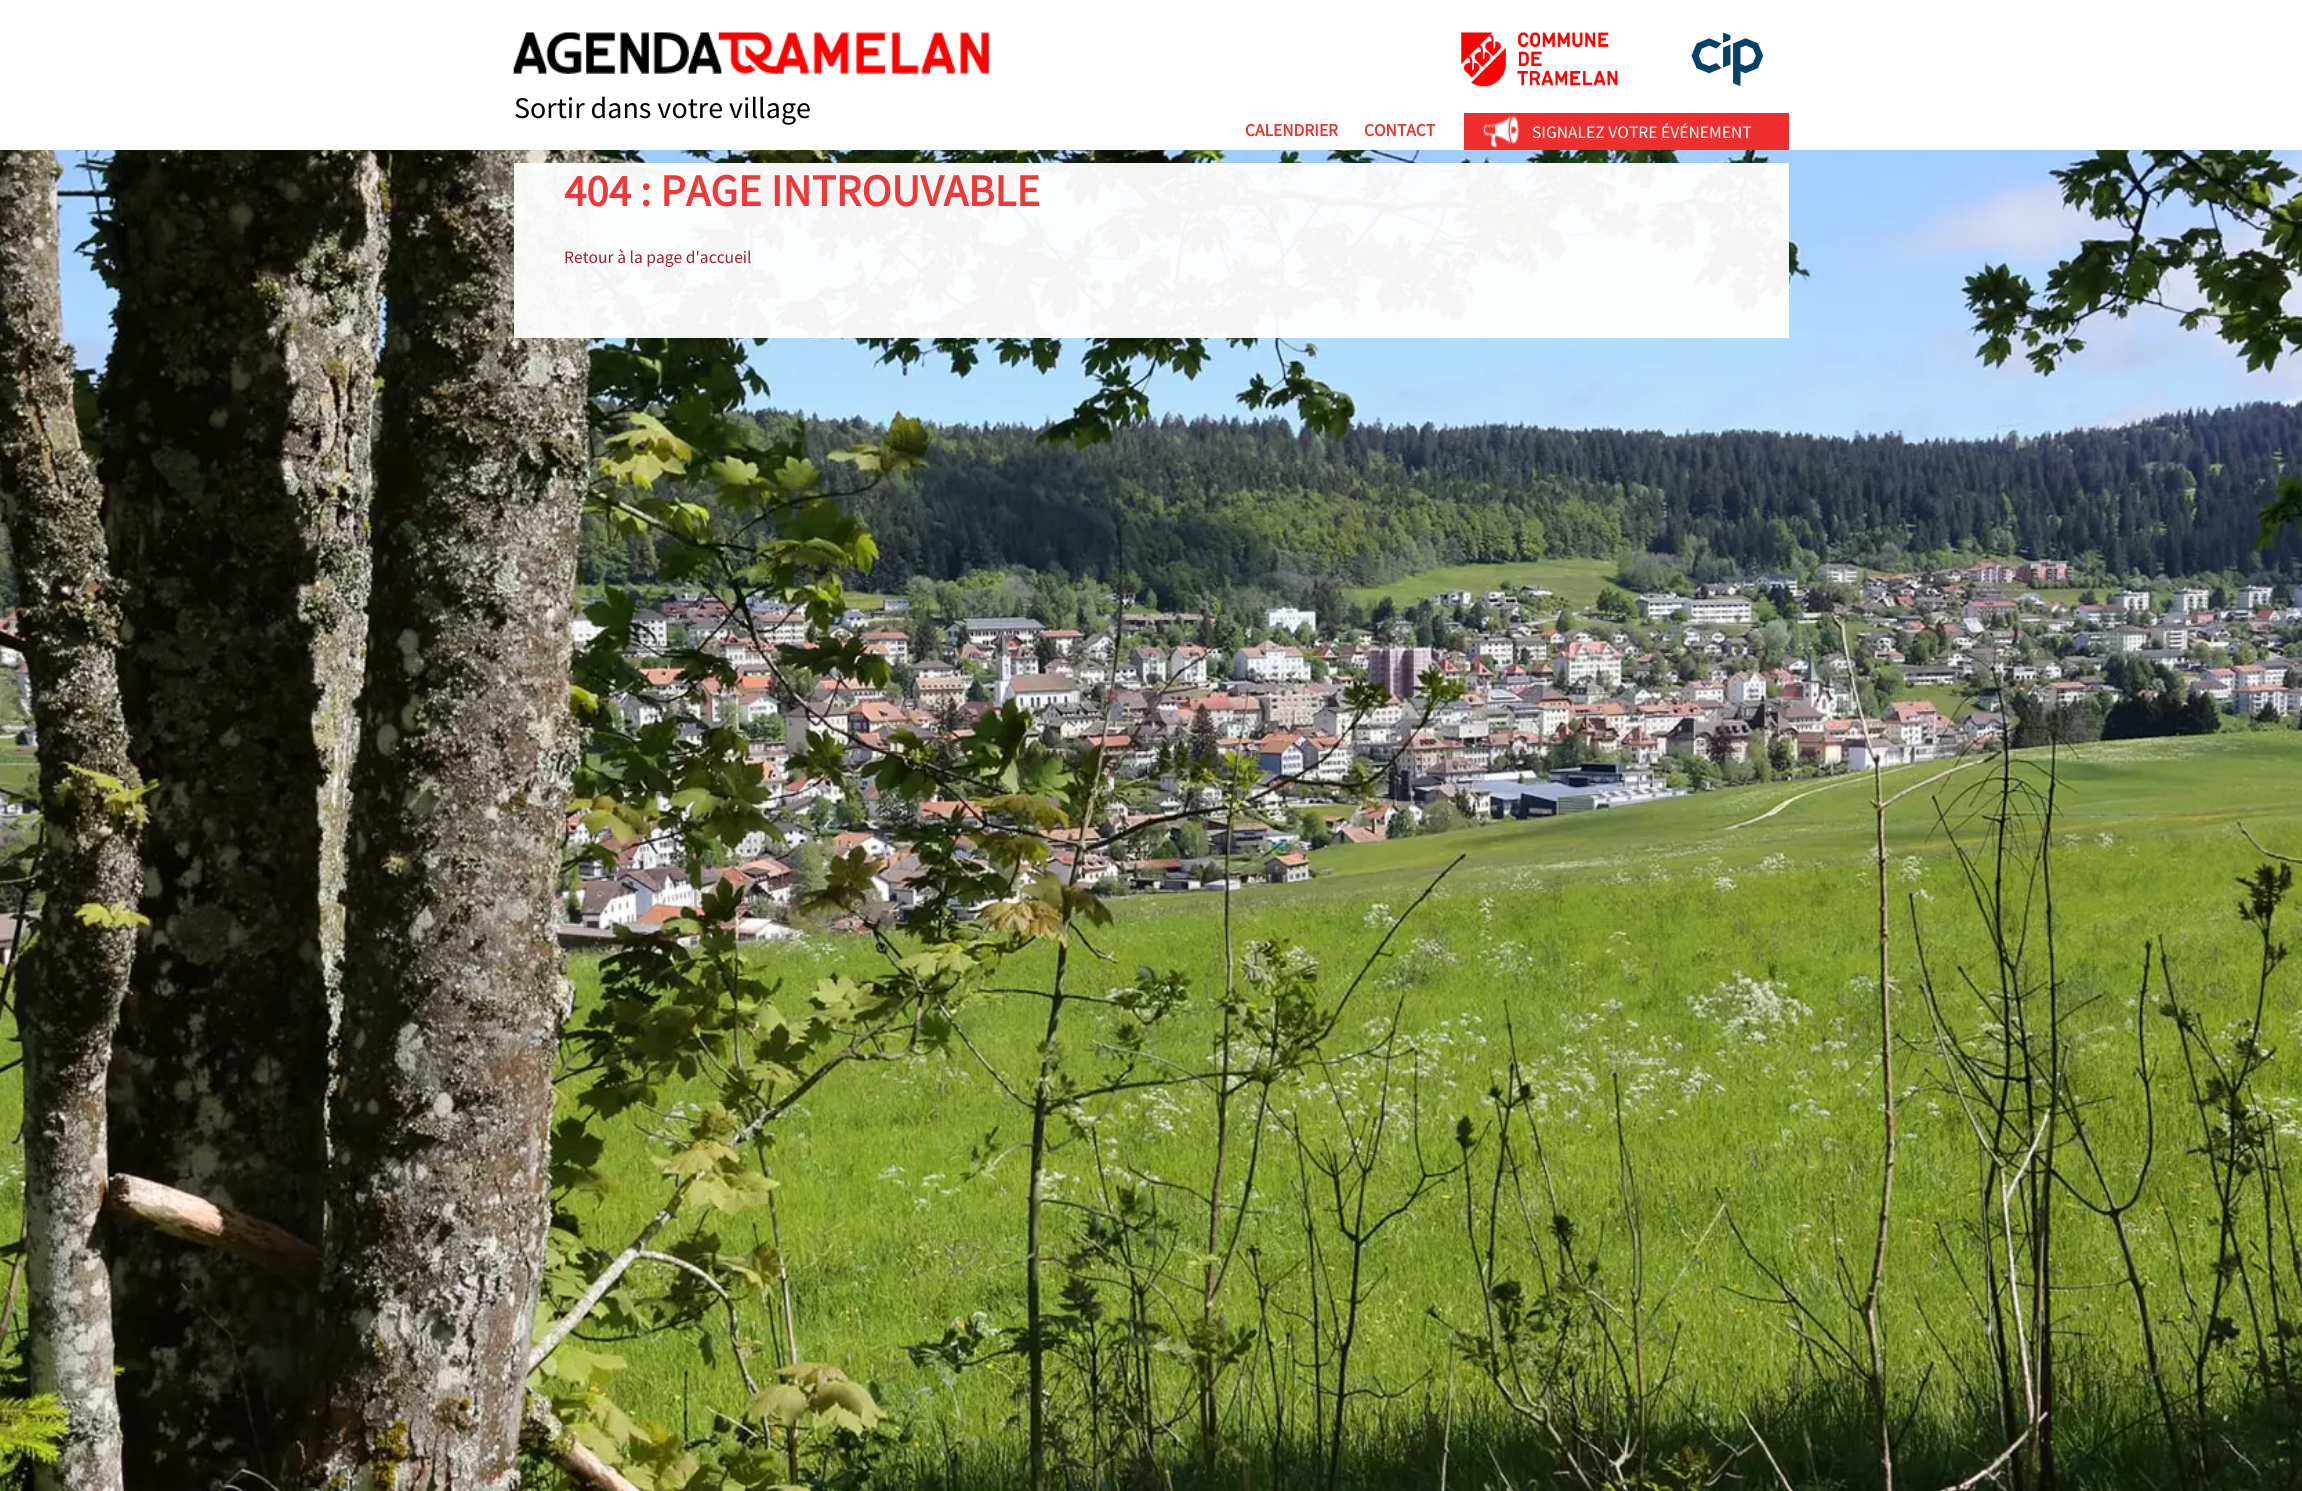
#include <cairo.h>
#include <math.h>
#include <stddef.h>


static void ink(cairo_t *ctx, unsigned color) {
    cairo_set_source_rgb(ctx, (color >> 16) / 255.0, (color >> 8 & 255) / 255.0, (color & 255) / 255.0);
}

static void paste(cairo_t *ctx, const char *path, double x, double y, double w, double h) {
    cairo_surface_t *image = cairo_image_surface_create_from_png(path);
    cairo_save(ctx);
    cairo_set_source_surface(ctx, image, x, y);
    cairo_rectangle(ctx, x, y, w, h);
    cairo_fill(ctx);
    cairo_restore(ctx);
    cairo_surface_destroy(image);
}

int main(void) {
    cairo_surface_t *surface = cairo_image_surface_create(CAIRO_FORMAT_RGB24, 2302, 1491);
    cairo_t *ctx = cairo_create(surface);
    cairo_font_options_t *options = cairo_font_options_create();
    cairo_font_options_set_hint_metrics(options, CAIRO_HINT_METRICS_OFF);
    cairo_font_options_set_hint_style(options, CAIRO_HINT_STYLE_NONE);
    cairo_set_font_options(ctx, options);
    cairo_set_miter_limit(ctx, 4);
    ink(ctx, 0xFFFFFF);
    cairo_paint(ctx);
    paste(ctx, "media/1.png", 513, 32, 476, 42);
    paste(ctx, "media/2.png", 1461, 32, 157, 55);
    paste(ctx, "media/3.png", 1691, 33, 73, 53);
    cairo_select_font_face(ctx, "Source Sans Pro", CAIRO_FONT_SLANT_NORMAL, CAIRO_FONT_WEIGHT_NORMAL);
    cairo_set_font_size(ctx, 30);
    ink(ctx, 0x000000);
    cairo_move_to(ctx, 514, 118);
    cairo_show_text(ctx, "Sortir dans votre village");
    cairo_select_font_face(ctx, "Source Sans Pro", CAIRO_FONT_SLANT_NORMAL, CAIRO_FONT_WEIGHT_BOLD);
    cairo_set_font_size(ctx, 17.5);
    ink(ctx, 0xEE2F2E);
    cairo_move_to(ctx, 1245, 136);
    cairo_show_text(ctx, "CALENDRIER");
    cairo_move_to(ctx, 1364, 136);
    cairo_show_text(ctx, "CONTACT");
    cairo_rectangle(ctx, 1464, 113, 325, 37);
    cairo_fill(ctx);
    paste(ctx, "media/4.png", 1483, 115, 36, 34);
    cairo_select_font_face(ctx, "Source Sans Pro", CAIRO_FONT_SLANT_NORMAL, CAIRO_FONT_WEIGHT_NORMAL);
    ink(ctx, 0xFFFFFF);
    cairo_move_to(ctx, 1532, 138);
    cairo_show_text(ctx, "SIGNALEZ VOTRE ÉVÉNEMENT");
    paste(ctx, "media/5.png", 0, 150, 2302, 1341);
    cairo_set_source_rgba(ctx, 1, 1, 1, 0.95);
    cairo_rectangle(ctx, 514, 163, 1275, 175);
    cairo_fill(ctx);
    cairo_select_font_face(ctx, "Source Sans Pro", CAIRO_FONT_SLANT_NORMAL, CAIRO_FONT_WEIGHT_BOLD);
    cairo_set_font_size(ctx, 45);
    ink(ctx, 0xEE3938);
    cairo_move_to(ctx, 564, 206);
    cairo_show_text(ctx, "404 : PAGE INTROUVABLE");
    cairo_select_font_face(ctx, "Source Sans Pro", CAIRO_FONT_SLANT_NORMAL, CAIRO_FONT_WEIGHT_NORMAL);
    cairo_set_font_size(ctx, 17.5);
    ink(ctx, 0x9F1F26);
    cairo_move_to(ctx, 564, 263);
    cairo_show_text(ctx, "Retour à la page d'accueil");
    cairo_surface_write_to_png(surface, "image.png");
    cairo_font_options_destroy(options);
    cairo_destroy(ctx);
    cairo_surface_destroy(surface);
    return 0;
}
